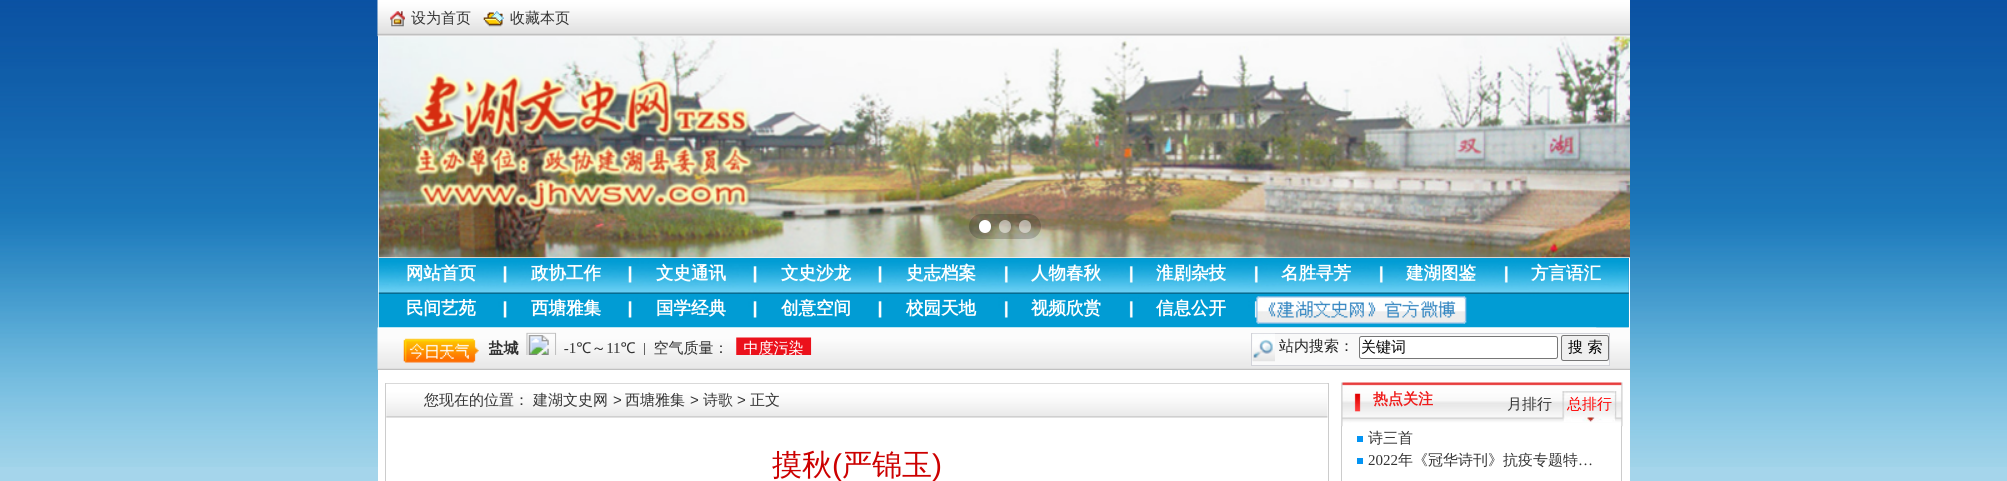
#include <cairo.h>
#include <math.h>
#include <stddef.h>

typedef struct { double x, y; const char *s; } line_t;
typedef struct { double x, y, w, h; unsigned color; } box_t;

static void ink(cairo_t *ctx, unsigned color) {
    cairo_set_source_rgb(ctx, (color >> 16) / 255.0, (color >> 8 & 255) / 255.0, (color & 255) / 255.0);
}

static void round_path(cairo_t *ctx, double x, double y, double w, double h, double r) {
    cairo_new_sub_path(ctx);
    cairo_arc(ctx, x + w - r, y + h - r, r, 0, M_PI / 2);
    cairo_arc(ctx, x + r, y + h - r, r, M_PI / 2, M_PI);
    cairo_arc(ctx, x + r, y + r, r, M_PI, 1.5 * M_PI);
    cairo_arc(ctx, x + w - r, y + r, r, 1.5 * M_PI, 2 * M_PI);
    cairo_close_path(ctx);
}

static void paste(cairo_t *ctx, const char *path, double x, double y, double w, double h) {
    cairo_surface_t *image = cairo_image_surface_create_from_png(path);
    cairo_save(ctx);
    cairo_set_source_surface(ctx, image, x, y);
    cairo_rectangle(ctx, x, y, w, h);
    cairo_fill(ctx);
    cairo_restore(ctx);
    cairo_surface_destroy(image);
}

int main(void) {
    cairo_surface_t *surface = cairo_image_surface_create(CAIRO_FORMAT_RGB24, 2007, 481);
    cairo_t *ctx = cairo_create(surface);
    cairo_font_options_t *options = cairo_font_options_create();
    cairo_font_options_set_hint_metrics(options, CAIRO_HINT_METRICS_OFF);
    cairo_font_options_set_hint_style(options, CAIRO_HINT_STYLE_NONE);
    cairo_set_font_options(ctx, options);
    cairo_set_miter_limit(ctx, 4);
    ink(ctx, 0xA5D5EB);
    cairo_paint(ctx);
    paste(ctx, "media/1.png", 0, 0, 2007, 467);
    ink(ctx, 0xFFFFFF);
    cairo_rectangle(ctx, 378, 36, 1252, 292);
    cairo_fill(ctx);
    paste(ctx, "media/2.png", 377, 0, 1253, 37);
    paste(ctx, "media/3.png", 390, 11, 15, 16);
    cairo_select_font_face(ctx, "WenQuanYi Zen Hei Medium", CAIRO_FONT_SLANT_NORMAL, CAIRO_FONT_WEIGHT_NORMAL);
    cairo_set_font_size(ctx, 15);
    ink(ctx, 0x333333);
    cairo_move_to(ctx, 411, 23);
    cairo_show_text(ctx, "设为首页");
    paste(ctx, "media/4.png", 483, 11, 21, 16);
    cairo_move_to(ctx, 510, 23);
    cairo_show_text(ctx, "收藏本页");
    paste(ctx, "media/6.png", 1596, 258, 33, 70);
    paste(ctx, "media/7.png", 378, 257, 1251, 71);
    ink(ctx, 0xF8F8F8);
    cairo_rectangle(ctx, 379, 37, 1251, 221);
    cairo_fill(ctx);
    paste(ctx, "media/5.png", 378, 36, 1252, 222);
    cairo_set_source_rgba(ctx, 0, 0, 0, 0.2);
    round_path(ctx, 969, 214, 72, 25, 12.5);
    cairo_fill(ctx);
    ink(ctx, 0xFFFFFF);
    round_path(ctx, 979, 220, 12, 13, 6);
    cairo_fill(ctx);
    cairo_set_source_rgba(ctx, 1, 1, 1, 0.5);
    round_path(ctx, 999, 220, 12, 13, 6);
    cairo_fill(ctx);
    round_path(ctx, 1019, 220, 12, 13, 6);
    cairo_fill(ctx);
    cairo_select_font_face(ctx, "WenQuanYi Zen Hei", CAIRO_FONT_SLANT_NORMAL, CAIRO_FONT_WEIGHT_BOLD);
    cairo_set_font_size(ctx, 17.5);
    ink(ctx, 0xFFFFFF);
    {
        static const line_t items[] = {
            {406, 279, "网站首页"},
            {531, 279, "政协工作"},
            {656, 279, "文史通讯"},
            {781, 279, "文史沙龙"},
            {906, 279, "史志档案"},
            {1031, 279, "人物春秋"},
            {1156, 279, "淮剧杂技"},
            {1281, 279, "名胜寻芳"},
            {1406, 279, "建湖图鉴"},
            {1531, 279, "方言语汇"},
            {406, 314, "民间艺苑"},
            {531, 314, "西塘雅集"},
            {656, 314, "国学经典"},
            {781, 314, "创意空间"},
            {906, 314, "校园天地"},
            {1031, 314, "视频欣赏"},
            {1156, 314, "信息公开"},
        };
        for (size_t i = 0; i < sizeof items / sizeof *items; i++) {
            cairo_move_to(ctx, items[i].x, items[i].y);
            cairo_show_text(ctx, items[i].s);
        }
    }
    paste(ctx, "media/8.png", 1256, 296, 211, 28);
    paste(ctx, "media/9.png", 377, 327, 1253, 43);
    paste(ctx, "media/10.png", 403, 338, 76, 25);
    paste(ctx, "media/11.png", 488, 332, 324, 23);
    ink(ctx, 0xF9F9F9);
    cairo_rectangle(ctx, 1251.5, 333.5, 358, 32);
    cairo_fill_preserve(ctx);
    ink(ctx, 0xD2D3D9);
    cairo_set_line_width(ctx, 1);
    cairo_stroke(ctx);
    paste(ctx, "media/12.png", 1252, 333, 23, 29);
    cairo_select_font_face(ctx, "WenQuanYi Zen Hei Medium", CAIRO_FONT_SLANT_NORMAL, CAIRO_FONT_WEIGHT_NORMAL);
    cairo_set_font_size(ctx, 15);
    ink(ctx, 0x252525);
    cairo_move_to(ctx, 1279, 351);
    cairo_show_text(ctx, "站内搜索：");
    ink(ctx, 0xFFFFFF);
    round_path(ctx, 1359.5, 336.5, 198, 22, 2);
    cairo_fill_preserve(ctx);
    ink(ctx, 0x767676);
    cairo_stroke(ctx);
    ink(ctx, 0x000000);
    cairo_move_to(ctx, 1361, 352);
    cairo_show_text(ctx, "关键词");
    ink(ctx, 0xEFEFEF);
    round_path(ctx, 1561.5, 335.5, 47, 25, 2);
    cairo_fill_preserve(ctx);
    ink(ctx, 0x767676);
    cairo_stroke(ctx);
    ink(ctx, 0x000000);
    cairo_move_to(ctx, 1568, 352);
    cairo_show_text(ctx, "搜 索");
    ink(ctx, 0xFFFFFF);
    cairo_rectangle(ctx, 378, 370, 1252, 111);
    cairo_fill(ctx);
    cairo_rectangle(ctx, 385.5, 383.5, 943, 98);
    ink(ctx, 0xCCCCCC);
    cairo_stroke(ctx);
    paste(ctx, "media/13.png", 386, 383, 942, 35);
    ink(ctx, 0x333333);
    cairo_move_to(ctx, 424, 405);
    cairo_show_text(ctx, "您现在的位置：");
    cairo_move_to(ctx, 533, 405);
    cairo_show_text(ctx, "建湖文史网");
    cairo_select_font_face(ctx, "Liberation Sans", CAIRO_FONT_SLANT_NORMAL, CAIRO_FONT_WEIGHT_NORMAL);
    cairo_move_to(ctx, 613, 405);
    cairo_show_text(ctx, ">");
    cairo_select_font_face(ctx, "WenQuanYi Zen Hei Medium", CAIRO_FONT_SLANT_NORMAL, CAIRO_FONT_WEIGHT_NORMAL);
    cairo_move_to(ctx, 625, 405);
    cairo_show_text(ctx, "西塘雅集");
    cairo_select_font_face(ctx, "Liberation Sans", CAIRO_FONT_SLANT_NORMAL, CAIRO_FONT_WEIGHT_NORMAL);
    cairo_move_to(ctx, 690, 405);
    cairo_show_text(ctx, ">");
    cairo_select_font_face(ctx, "WenQuanYi Zen Hei Medium", CAIRO_FONT_SLANT_NORMAL, CAIRO_FONT_WEIGHT_NORMAL);
    cairo_move_to(ctx, 703, 405);
    cairo_show_text(ctx, "诗歌");
    cairo_select_font_face(ctx, "Liberation Sans", CAIRO_FONT_SLANT_NORMAL, CAIRO_FONT_WEIGHT_NORMAL);
    cairo_move_to(ctx, 737, 405);
    cairo_show_text(ctx, ">");
    cairo_select_font_face(ctx, "WenQuanYi Zen Hei Medium", CAIRO_FONT_SLANT_NORMAL, CAIRO_FONT_WEIGHT_NORMAL);
    cairo_move_to(ctx, 750, 405);
    cairo_show_text(ctx, "正文");
    cairo_set_font_size(ctx, 30);
    ink(ctx, 0xCC0000);
    cairo_move_to(ctx, 772, 475);
    cairo_show_text(ctx, "摸秋");
    cairo_select_font_face(ctx, "Liberation Sans", CAIRO_FONT_SLANT_NORMAL, CAIRO_FONT_WEIGHT_NORMAL);
    cairo_move_to(ctx, 832, 475);
    cairo_show_text(ctx, "(");
    cairo_select_font_face(ctx, "WenQuanYi Zen Hei Medium", CAIRO_FONT_SLANT_NORMAL, CAIRO_FONT_WEIGHT_NORMAL);
    cairo_move_to(ctx, 842, 475);
    cairo_show_text(ctx, "严锦玉");
    cairo_select_font_face(ctx, "Liberation Sans", CAIRO_FONT_SLANT_NORMAL, CAIRO_FONT_WEIGHT_NORMAL);
    cairo_move_to(ctx, 932, 475);
    cairo_show_text(ctx, ")");
    paste(ctx, "media/14.png", 1341, 382, 282, 45);
    cairo_select_font_face(ctx, "WenQuanYi Zen Hei", CAIRO_FONT_SLANT_NORMAL, CAIRO_FONT_WEIGHT_BOLD);
    cairo_set_font_size(ctx, 15);
    ink(ctx, 0xEF1D1C);
    cairo_move_to(ctx, 1373, 404);
    cairo_show_text(ctx, "热点关注");
    cairo_select_font_face(ctx, "WenQuanYi Zen Hei Medium", CAIRO_FONT_SLANT_NORMAL, CAIRO_FONT_WEIGHT_NORMAL);
    ink(ctx, 0x333333);
    cairo_move_to(ctx, 1507, 409);
    cairo_show_text(ctx, "月排行");
    paste(ctx, "media/15.png", 1562, 391, 55, 31);
    ink(ctx, 0xFF0000);
    cairo_move_to(ctx, 1567, 409);
    cairo_show_text(ctx, "总排行");
    {
        static const box_t items[] = {
            {1621, 426, 1, 55, 0xCCCCCC},
            {1341, 426, 1, 55, 0xCCCCCC},
            {1357, 436, 6, 6, 0x0394F3},
        };
        for (size_t i = 0; i < sizeof items / sizeof *items; i++) {
            ink(ctx, items[i].color);
            cairo_rectangle(ctx, items[i].x, items[i].y, items[i].w, items[i].h);
            cairo_fill(ctx);
        }
    }
    ink(ctx, 0x333333);
    cairo_move_to(ctx, 1368, 443);
    cairo_show_text(ctx, "诗三首");
    ink(ctx, 0x0394F3);
    cairo_rectangle(ctx, 1357, 458, 6, 6);
    cairo_fill(ctx);
    cairo_select_font_face(ctx, "Liberation Serif", CAIRO_FONT_SLANT_NORMAL, CAIRO_FONT_WEIGHT_NORMAL);
    ink(ctx, 0x333333);
    cairo_move_to(ctx, 1368, 465);
    cairo_show_text(ctx, "2022");
    cairo_select_font_face(ctx, "WenQuanYi Zen Hei Medium", CAIRO_FONT_SLANT_NORMAL, CAIRO_FONT_WEIGHT_NORMAL);
    cairo_move_to(ctx, 1398, 465);
    cairo_show_text(ctx, "年《冠华诗刊》抗疫专题特");
    cairo_select_font_face(ctx, "Liberation Serif", CAIRO_FONT_SLANT_NORMAL, CAIRO_FONT_WEIGHT_NORMAL);
    cairo_move_to(ctx, 1578, 465);
    cairo_show_text(ctx, "…");
    cairo_surface_write_to_png(surface, "image.png");
    cairo_font_options_destroy(options);
    cairo_destroy(ctx);
    cairo_surface_destroy(surface);
    return 0;
}
